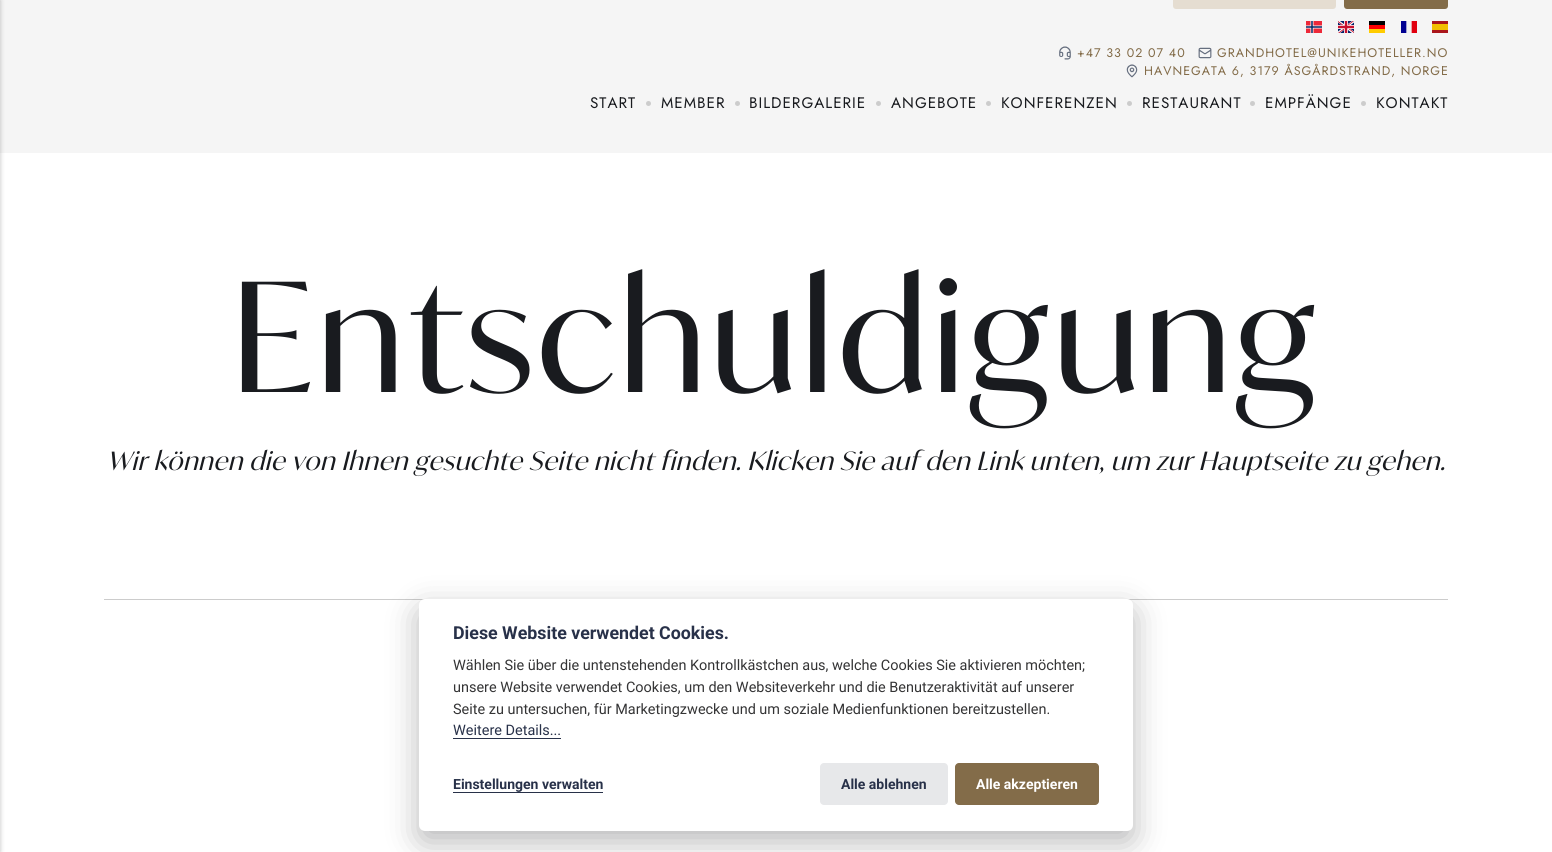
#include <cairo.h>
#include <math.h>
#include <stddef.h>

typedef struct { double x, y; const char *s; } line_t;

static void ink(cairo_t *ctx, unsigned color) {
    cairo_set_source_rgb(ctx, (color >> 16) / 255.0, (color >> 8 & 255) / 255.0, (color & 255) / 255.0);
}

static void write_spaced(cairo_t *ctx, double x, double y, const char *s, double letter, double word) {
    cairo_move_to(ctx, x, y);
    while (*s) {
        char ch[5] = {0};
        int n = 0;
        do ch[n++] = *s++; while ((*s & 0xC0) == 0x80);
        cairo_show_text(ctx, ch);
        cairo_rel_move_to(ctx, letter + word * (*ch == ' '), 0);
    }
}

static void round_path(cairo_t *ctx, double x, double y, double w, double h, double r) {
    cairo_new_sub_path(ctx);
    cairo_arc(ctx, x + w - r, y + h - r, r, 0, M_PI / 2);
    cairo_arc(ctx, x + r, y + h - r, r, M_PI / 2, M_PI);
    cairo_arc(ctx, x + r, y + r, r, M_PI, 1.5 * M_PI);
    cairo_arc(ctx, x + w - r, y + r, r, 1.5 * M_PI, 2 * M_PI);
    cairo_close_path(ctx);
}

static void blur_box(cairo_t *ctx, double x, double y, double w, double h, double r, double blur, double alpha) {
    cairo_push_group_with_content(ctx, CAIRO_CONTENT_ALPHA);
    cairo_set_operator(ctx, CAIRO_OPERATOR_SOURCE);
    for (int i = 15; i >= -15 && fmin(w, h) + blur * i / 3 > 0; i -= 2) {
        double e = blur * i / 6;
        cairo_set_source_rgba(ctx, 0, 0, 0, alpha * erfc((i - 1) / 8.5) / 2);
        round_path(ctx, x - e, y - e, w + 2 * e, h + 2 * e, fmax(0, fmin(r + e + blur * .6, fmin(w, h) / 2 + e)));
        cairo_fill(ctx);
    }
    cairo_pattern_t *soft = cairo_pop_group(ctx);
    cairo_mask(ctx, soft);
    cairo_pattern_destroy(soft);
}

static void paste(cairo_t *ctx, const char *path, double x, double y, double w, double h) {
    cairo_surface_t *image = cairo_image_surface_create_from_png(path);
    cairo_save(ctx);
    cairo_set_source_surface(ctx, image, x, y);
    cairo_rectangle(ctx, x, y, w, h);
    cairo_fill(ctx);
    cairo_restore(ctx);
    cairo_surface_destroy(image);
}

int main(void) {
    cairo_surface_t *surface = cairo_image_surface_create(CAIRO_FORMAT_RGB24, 1552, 852);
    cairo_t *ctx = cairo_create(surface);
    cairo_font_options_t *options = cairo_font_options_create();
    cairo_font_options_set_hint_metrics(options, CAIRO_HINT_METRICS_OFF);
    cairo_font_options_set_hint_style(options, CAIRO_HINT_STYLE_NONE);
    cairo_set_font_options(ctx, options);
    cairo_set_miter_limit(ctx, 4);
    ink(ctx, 0xFFFFFF);
    cairo_paint(ctx);
    ink(ctx, 0xF5F5F5);
    cairo_rectangle(ctx, 0, 0, 1552, 153);
    cairo_fill(ctx);
    ink(ctx, 0x000000);
    blur_box(ctx, -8, 0, 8, 852, 0, 2.5, 0.25);
    ink(ctx, 0xE5DDD1);
    round_path(ctx, 1173, -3, 163, 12, 3);
    cairo_fill(ctx);
    ink(ctx, 0x836C49);
    round_path(ctx, 1344, -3, 104, 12, 3);
    cairo_fill(ctx);
    paste(ctx, "media/1.png", 1306, 21, 16, 12);
    paste(ctx, "media/2.png", 1338, 21, 16, 12);
    paste(ctx, "media/3.png", 1369, 21, 16, 12);
    paste(ctx, "media/4.png", 1401, 21, 16, 12);
    paste(ctx, "media/5.png", 1432, 21, 16, 12);
    paste(ctx, "media/6.png", 1059, 46, 12, 14);
    cairo_select_font_face(ctx, "Jost", CAIRO_FONT_SLANT_NORMAL, CAIRO_FONT_WEIGHT_NORMAL);
    cairo_set_font_size(ctx, 12.5);
    write_spaced(ctx, 1077, 57, "+47 33 02 07 40", 1, 0);
    paste(ctx, "media/7.png", 1198, 47, 14, 12);
    write_spaced(ctx, 1217, 57, "GRANDHOTEL@UNIKEHOTELLER.NO", 1, 0);
    paste(ctx, "media/8.png", 1126, 64, 12, 14);
    write_spaced(ctx, 1144, 75, "HAVNEGATA 6, 3179 ÅSGÅRDSTRAND, NORGE", 1, 0);
    cairo_set_font_size(ctx, 15.25);
    ink(ctx, 0x191B1F);
    write_spaced(ctx, 590, 108, "START", 1, 0);
    ink(ctx, 0xCCCCCC);
    cairo_new_path(ctx);
    cairo_arc(ctx, 648.5, 103.5, 2.5, 0, 2 * M_PI);
    cairo_fill(ctx);
    ink(ctx, 0x191B1F);
    write_spaced(ctx, 661, 108, "MEMBER", 1, 0);
    ink(ctx, 0xCCCCCC);
    cairo_new_path(ctx);
    cairo_arc(ctx, 737.5, 103.5, 2.5, 0, 2 * M_PI);
    cairo_fill(ctx);
    ink(ctx, 0x191B1F);
    write_spaced(ctx, 749, 108, "BILDERGALERIE", 1, 0);
    ink(ctx, 0xCCCCCC);
    cairo_new_path(ctx);
    cairo_arc(ctx, 878.5, 103.5, 2.5, 0, 2 * M_PI);
    cairo_fill(ctx);
    ink(ctx, 0x191B1F);
    write_spaced(ctx, 891, 108, "ANGEBOTE", 1, 0);
    ink(ctx, 0xCCCCCC);
    cairo_new_path(ctx);
    cairo_arc(ctx, 988.5, 103.5, 2.5, 0, 2 * M_PI);
    cairo_fill(ctx);
    ink(ctx, 0x191B1F);
    write_spaced(ctx, 1001, 108, "KONFERENZEN", 1, 0);
    ink(ctx, 0xCCCCCC);
    cairo_new_path(ctx);
    cairo_arc(ctx, 1129.5, 103.5, 2.5, 0, 2 * M_PI);
    cairo_fill(ctx);
    ink(ctx, 0x191B1F);
    write_spaced(ctx, 1142, 108, "RESTAURANT", 1, 0);
    ink(ctx, 0xCCCCCC);
    cairo_new_path(ctx);
    cairo_arc(ctx, 1252.5, 103.5, 2.5, 0, 2 * M_PI);
    cairo_fill(ctx);
    ink(ctx, 0x191B1F);
    write_spaced(ctx, 1265, 108, "EMPFÄNGE", 1, 0);
    ink(ctx, 0xCCCCCC);
    cairo_new_path(ctx);
    cairo_arc(ctx, 1363.5, 103.5, 2.5, 0, 2 * M_PI);
    cairo_fill(ctx);
    ink(ctx, 0x191B1F);
    write_spaced(ctx, 1376, 108, "KONTAKT", 1, 0);
    cairo_select_font_face(ctx, "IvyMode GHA", CAIRO_FONT_SLANT_NORMAL, CAIRO_FONT_WEIGHT_NORMAL);
    cairo_set_font_size(ctx, 151.5);
    write_spaced(ctx, 231, 392, "Entschuldigung", 4.5, 0);
    cairo_select_font_face(ctx, "IvyMode GHA", CAIRO_FONT_SLANT_ITALIC, CAIRO_FONT_WEIGHT_NORMAL);
    cairo_set_font_size(ctx, 25.23);
    write_spaced(ctx, 107, 470, "Wir können die von Ihnen gesuchte Seite nicht finden. Klicken Sie auf den Link unten, um zur Hauptseite zu gehen.", 0.76, 0);
    ink(ctx, 0xCCCCCC);
    cairo_rectangle(ctx, 104, 599, 1344, 1);
    cairo_fill(ctx);
    ink(ctx, 0x020203);
    blur_box(ctx, 419, 610, 714, 232, 6, 16, 0.28);
    ink(ctx, 0xFFFFFF);
    round_path(ctx, 419, 599, 714, 232, 6);
    cairo_fill(ctx);
    cairo_select_font_face(ctx, "Roboto", CAIRO_FONT_SLANT_NORMAL, CAIRO_FONT_WEIGHT_BOLD);
    cairo_set_font_size(ctx, 17.8);
    ink(ctx, 0x283149);
    cairo_move_to(ctx, 453, 639);
    cairo_show_text(ctx, "Diese Website verwendet Cookies.");
    cairo_select_font_face(ctx, "Roboto", CAIRO_FONT_SLANT_NORMAL, CAIRO_FONT_WEIGHT_NORMAL);
    cairo_set_font_size(ctx, 14.45);
    ink(ctx, 0x343435);
    {
        static const line_t items[] = {
            {453, 670, "Wählen Sie über die untenstehenden Kontrollkästchen aus, welche Cookies Sie aktivieren möchten;"},
            {453, 692, "unsere Website verwendet Cookies, um den Websiteverkehr und die Benutzeraktivität auf unserer"},
            {453, 714, "Seite zu untersuchen, für Marketingzwecke und um soziale Medienfunktionen bereitzustellen."},
        };
        for (size_t i = 0; i < sizeof items / sizeof *items; i++) {
            cairo_move_to(ctx, items[i].x, items[i].y);
            cairo_show_text(ctx, items[i].s);
        }
    }
    ink(ctx, 0x283149);
    cairo_move_to(ctx, 453, 735);
    cairo_show_text(ctx, "Weitere Details...");
    cairo_rectangle(ctx, 453, 738, 108, 1);
    cairo_fill(ctx);
    cairo_select_font_face(ctx, "Roboto", CAIRO_FONT_SLANT_NORMAL, CAIRO_FONT_WEIGHT_BOLD);
    cairo_set_font_size(ctx, 14);
    cairo_move_to(ctx, 453, 789);
    cairo_show_text(ctx, "Einstellungen verwalten");
    cairo_rectangle(ctx, 453, 792, 150, 1);
    cairo_fill(ctx);
    ink(ctx, 0xE7E8EA);
    round_path(ctx, 820, 763, 128, 42, 4);
    cairo_fill(ctx);
    ink(ctx, 0x283149);
    cairo_move_to(ctx, 841, 789);
    cairo_show_text(ctx, "Alle ablehnen");
    ink(ctx, 0x836C49);
    round_path(ctx, 955, 763, 144, 42, 4);
    cairo_fill(ctx);
    ink(ctx, 0xFFFFFF);
    cairo_move_to(ctx, 976, 789);
    cairo_show_text(ctx, "Alle akzeptieren");
    cairo_surface_write_to_png(surface, "image.png");
    cairo_font_options_destroy(options);
    cairo_destroy(ctx);
    cairo_surface_destroy(surface);
    return 0;
}
